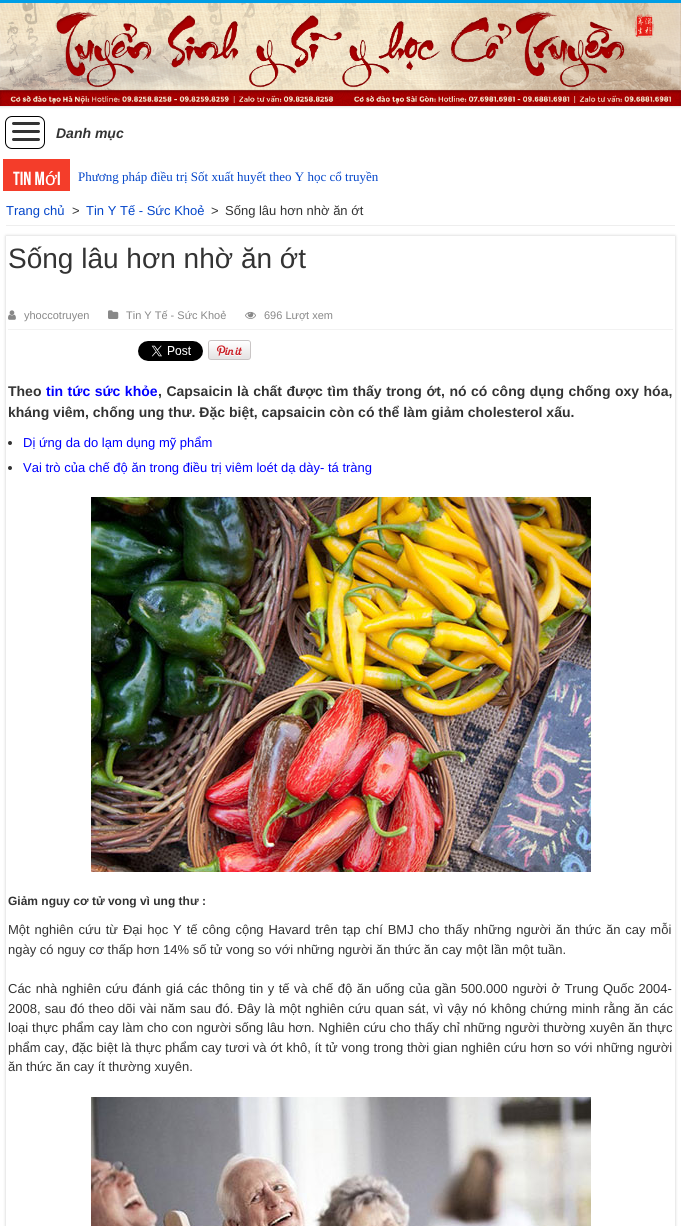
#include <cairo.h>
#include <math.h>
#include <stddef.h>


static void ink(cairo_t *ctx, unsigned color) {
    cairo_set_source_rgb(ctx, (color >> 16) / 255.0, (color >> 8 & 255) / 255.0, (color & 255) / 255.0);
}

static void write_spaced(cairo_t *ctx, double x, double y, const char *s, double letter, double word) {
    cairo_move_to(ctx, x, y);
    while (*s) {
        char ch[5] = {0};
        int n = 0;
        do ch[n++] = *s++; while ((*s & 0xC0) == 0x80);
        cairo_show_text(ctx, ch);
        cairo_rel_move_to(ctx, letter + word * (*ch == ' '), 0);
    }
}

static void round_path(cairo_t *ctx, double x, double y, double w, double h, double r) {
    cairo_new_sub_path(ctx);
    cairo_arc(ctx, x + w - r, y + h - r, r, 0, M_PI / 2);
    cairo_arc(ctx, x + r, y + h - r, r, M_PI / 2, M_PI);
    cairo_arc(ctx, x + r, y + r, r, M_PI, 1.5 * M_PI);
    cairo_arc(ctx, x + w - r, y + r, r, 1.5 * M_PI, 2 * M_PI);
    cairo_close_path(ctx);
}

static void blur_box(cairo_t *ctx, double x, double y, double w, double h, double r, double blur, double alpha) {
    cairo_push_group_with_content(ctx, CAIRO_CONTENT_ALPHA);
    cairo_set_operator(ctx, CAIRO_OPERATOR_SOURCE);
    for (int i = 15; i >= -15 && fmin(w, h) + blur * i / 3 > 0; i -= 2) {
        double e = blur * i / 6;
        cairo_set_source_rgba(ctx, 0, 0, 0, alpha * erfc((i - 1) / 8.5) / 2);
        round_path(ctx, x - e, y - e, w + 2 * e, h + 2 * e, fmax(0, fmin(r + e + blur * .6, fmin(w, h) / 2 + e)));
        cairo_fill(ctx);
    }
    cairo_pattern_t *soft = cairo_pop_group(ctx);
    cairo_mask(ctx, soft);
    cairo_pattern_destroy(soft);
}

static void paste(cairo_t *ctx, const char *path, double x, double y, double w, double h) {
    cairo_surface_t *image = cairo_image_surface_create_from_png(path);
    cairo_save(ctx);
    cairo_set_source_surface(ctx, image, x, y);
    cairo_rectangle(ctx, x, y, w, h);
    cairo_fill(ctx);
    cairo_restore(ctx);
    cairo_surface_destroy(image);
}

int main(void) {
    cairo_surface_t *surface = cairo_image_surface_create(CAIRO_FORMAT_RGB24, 681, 1226);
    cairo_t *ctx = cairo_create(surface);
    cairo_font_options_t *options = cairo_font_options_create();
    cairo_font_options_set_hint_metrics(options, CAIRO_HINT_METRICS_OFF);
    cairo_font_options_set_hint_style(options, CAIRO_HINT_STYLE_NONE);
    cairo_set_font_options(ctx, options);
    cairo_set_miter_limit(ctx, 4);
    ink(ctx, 0xFFFFFF);
    cairo_paint(ctx);
    ink(ctx, 0xCACACA);
    blur_box(ctx, 0, 0, 681, 106, 0, 1.5, 1);
    ink(ctx, 0x009EE5);
    cairo_rectangle(ctx, 0, 0, 681, 3);
    cairo_fill(ctx);
    paste(ctx, "media/1.png", 0, 3, 681, 103);
    round_path(ctx, 5.5, 116.5, 39, 32, 6.5);
    ink(ctx, 0x000000);
    cairo_set_line_width(ctx, 1);
    cairo_stroke(ctx);
    ink(ctx, 0x333333);
    round_path(ctx, 12, 122, 28, 3, 1.5);
    cairo_fill(ctx);
    round_path(ctx, 12, 130, 28, 3, 1.5);
    cairo_fill(ctx);
    round_path(ctx, 12, 138, 28, 3, 1.5);
    cairo_fill(ctx);
    cairo_select_font_face(ctx, "Liberation Sans", CAIRO_FONT_SLANT_ITALIC, CAIRO_FONT_WEIGHT_BOLD);
    cairo_set_font_size(ctx, 14);
    cairo_move_to(ctx, 56, 138);
    cairo_show_text(ctx, "Danh mục");
    ink(ctx, 0xF43D2A);
    cairo_rectangle(ctx, 3, 159, 67, 32);
    cairo_fill(ctx);
    cairo_select_font_face(ctx, "Bebas Neue", CAIRO_FONT_SLANT_NORMAL, CAIRO_FONT_WEIGHT_BOLD);
    cairo_set_font_size(ctx, 19);
    ink(ctx, 0xFFFFFF);
    cairo_move_to(ctx, 13, 185);
    cairo_show_text(ctx, "Tin m");
    cairo_select_font_face(ctx, "Liberation Sans", CAIRO_FONT_SLANT_NORMAL, CAIRO_FONT_WEIGHT_NORMAL);
    cairo_move_to(ctx, 45, 185);
    cairo_show_text(ctx, "ớ");
    cairo_select_font_face(ctx, "Bebas Neue", CAIRO_FONT_SLANT_NORMAL, CAIRO_FONT_WEIGHT_BOLD);
    cairo_move_to(ctx, 57, 185);
    cairo_show_text(ctx, "i");
    cairo_select_font_face(ctx, "Liberation Serif", CAIRO_FONT_SLANT_NORMAL, CAIRO_FONT_WEIGHT_NORMAL);
    cairo_set_font_size(ctx, 13);
    ink(ctx, 0x0446CA);
    cairo_move_to(ctx, 78, 181);
    cairo_show_text(ctx, "Phương pháp điều trị Sốt xuất huyết theo Y học cổ truyền");
    ink(ctx, 0xEEEEEE);
    cairo_rectangle(ctx, 6, 225, 669, 1);
    cairo_fill(ctx);
    cairo_select_font_face(ctx, "Liberation Sans", CAIRO_FONT_SLANT_NORMAL, CAIRO_FONT_WEIGHT_NORMAL);
    ink(ctx, 0x0446CA);
    cairo_move_to(ctx, 6, 215);
    cairo_show_text(ctx, "Trang chủ");
    ink(ctx, 0x333333);
    cairo_move_to(ctx, 72, 215);
    cairo_show_text(ctx, ">");
    ink(ctx, 0x0446CA);
    cairo_move_to(ctx, 86, 215);
    cairo_show_text(ctx, "Tin Y Tế - Sức Khoẻ");
    ink(ctx, 0x333333);
    cairo_move_to(ctx, 211, 215);
    cairo_show_text(ctx, ">");
    cairo_move_to(ctx, 225, 215);
    cairo_show_text(ctx, "Sống lâu hơn nhờ ăn ớt");
    cairo_save(ctx);
    cairo_set_fill_rule(ctx, CAIRO_FILL_RULE_EVEN_ODD);
    cairo_new_path(ctx);
    cairo_move_to(ctx, 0, 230);
    cairo_line_to(ctx, 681, 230);
    cairo_line_to(ctx, 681, 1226);
    cairo_line_to(ctx, 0, 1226);
    cairo_close_path(ctx);
    cairo_move_to(ctx, 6, 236);
    cairo_line_to(ctx, 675, 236);
    cairo_line_to(ctx, 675, 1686);
    cairo_line_to(ctx, 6, 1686);
    cairo_close_path(ctx);
    cairo_clip(ctx);
    ink(ctx, 0xCACACA);
    blur_box(ctx, 6, 236, 669, 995, 0, 1.5, 1);
    cairo_restore(ctx);
    cairo_set_font_size(ctx, 28);
    cairo_move_to(ctx, 8, 268);
    cairo_show_text(ctx, "Sống lâu hơn nhờ ăn ớt");
    ink(ctx, 0xF2F2F2);
    cairo_rectangle(ctx, 8, 329, 665, 1);
    cairo_fill(ctx);
    paste(ctx, "media/2.png", 8, 310, 8, 10);
    cairo_set_font_size(ctx, 11);
    ink(ctx, 0x888888);
    cairo_move_to(ctx, 24, 319);
    cairo_show_text(ctx, "yhoccotruyen");
    paste(ctx, "media/3.png", 108, 310, 11, 9);
    cairo_move_to(ctx, 126, 319);
    cairo_show_text(ctx, "Tin Y Tế - Sức Khoẻ");
    paste(ctx, "media/4.png", 245, 311, 11, 8);
    cairo_move_to(ctx, 264, 319);
    cairo_show_text(ctx, "696 Lượt xem");
    paste(ctx, "media/5.png", 138, 341, 65, 20);
    paste(ctx, "media/6.png", 208, 340, 43, 20);
    cairo_select_font_face(ctx, "Liberation Sans", CAIRO_FONT_SLANT_NORMAL, CAIRO_FONT_WEIGHT_BOLD);
    cairo_set_font_size(ctx, 14);
    ink(ctx, 0x333333);
    cairo_move_to(ctx, 8, 396);
    cairo_show_text(ctx, "Theo");
    ink(ctx, 0x0000FF);
    write_spaced(ctx, 46, 396, "tin tức sức khỏe", 0, 0.6);
    ink(ctx, 0x333333);
    write_spaced(ctx, 158, 396, ", Capsaicin là chất được tìm thấy trong ớt, nó có công dụng chống oxy hóa,", 0, 0.6);
    cairo_move_to(ctx, 8, 417);
    cairo_show_text(ctx, "kháng viêm, chống ung thư. Đặc biệt, capsaicin còn có thể làm giảm cholesterol xấu.");
    cairo_new_path(ctx);
    cairo_arc(ctx, 10, 443, 2, 0, 2 * M_PI);
    cairo_fill(ctx);
    cairo_select_font_face(ctx, "Liberation Sans", CAIRO_FONT_SLANT_NORMAL, CAIRO_FONT_WEIGHT_NORMAL);
    cairo_set_font_size(ctx, 13);
    ink(ctx, 0x0000FF);
    cairo_move_to(ctx, 23, 447);
    cairo_show_text(ctx, "Dị ứng da do lạm dụng mỹ phẩm");
    ink(ctx, 0x333333);
    cairo_new_path(ctx);
    cairo_arc(ctx, 10, 468, 2, 0, 2 * M_PI);
    cairo_fill(ctx);
    ink(ctx, 0x0000FF);
    cairo_move_to(ctx, 23, 472);
    cairo_show_text(ctx, "Vai trò của chế độ ăn trong điều trị viêm loét dạ dày- tá tràng");
    paste(ctx, "media/7.png", 91, 497, 500, 375);
    cairo_select_font_face(ctx, "Liberation Sans", CAIRO_FONT_SLANT_NORMAL, CAIRO_FONT_WEIGHT_BOLD);
    cairo_set_font_size(ctx, 12);
    ink(ctx, 0x333333);
    cairo_move_to(ctx, 8, 905);
    cairo_show_text(ctx, "Giảm nguy cơ tử vong vì ung thư :");
    cairo_select_font_face(ctx, "Liberation Sans", CAIRO_FONT_SLANT_NORMAL, CAIRO_FONT_WEIGHT_NORMAL);
    cairo_set_font_size(ctx, 13);
    write_spaced(ctx, 8, 934, "Một nghiên cứu từ Đại học Y tế công cộng Havard trên tạp chí BMJ cho thấy những người ăn thức ăn cay mỗi", 0, 1.25);
    cairo_move_to(ctx, 8, 954);
    cairo_show_text(ctx, "ngày có nguy cơ thấp hơn 14% số tử vong so với những người ăn thức ăn cay một lần một tuần.");
    write_spaced(ctx, 8, 993, "Các nhà nghiên cứu đánh giá các thông tin y tế và chế độ ăn uống của gần 500.000 người ở Trung Quốc 2004-", 0, 0.9);
    write_spaced(ctx, 8, 1013, "2008, sau đó theo dõi vài năm sau đó. Đây là một nghiên cứu quan sát, vì vậy nó không chứng minh rằng ăn các", 0, 0.6);
    write_spaced(ctx, 8, 1032, "loại thực phẩm cay làm cho con người sống lâu hơn. Nghiên cứu cho thấy chỉ những người thường xuyên ăn thực", 0, 0.2);
    write_spaced(ctx, 8, 1052, "phẩm cay, đặc biệt là thực phẩm cay tươi và ớt khô, ít tử vong trong thời gian nghiên cứu hơn so với những người", 0, 0.15);
    cairo_move_to(ctx, 8, 1071);
    cairo_show_text(ctx, "ăn thức ăn cay ít thường xuyên.");
    paste(ctx, "media/8.png", 91, 1097, 500, 129);
    cairo_surface_write_to_png(surface, "image.png");
    cairo_font_options_destroy(options);
    cairo_destroy(ctx);
    cairo_surface_destroy(surface);
    return 0;
}
